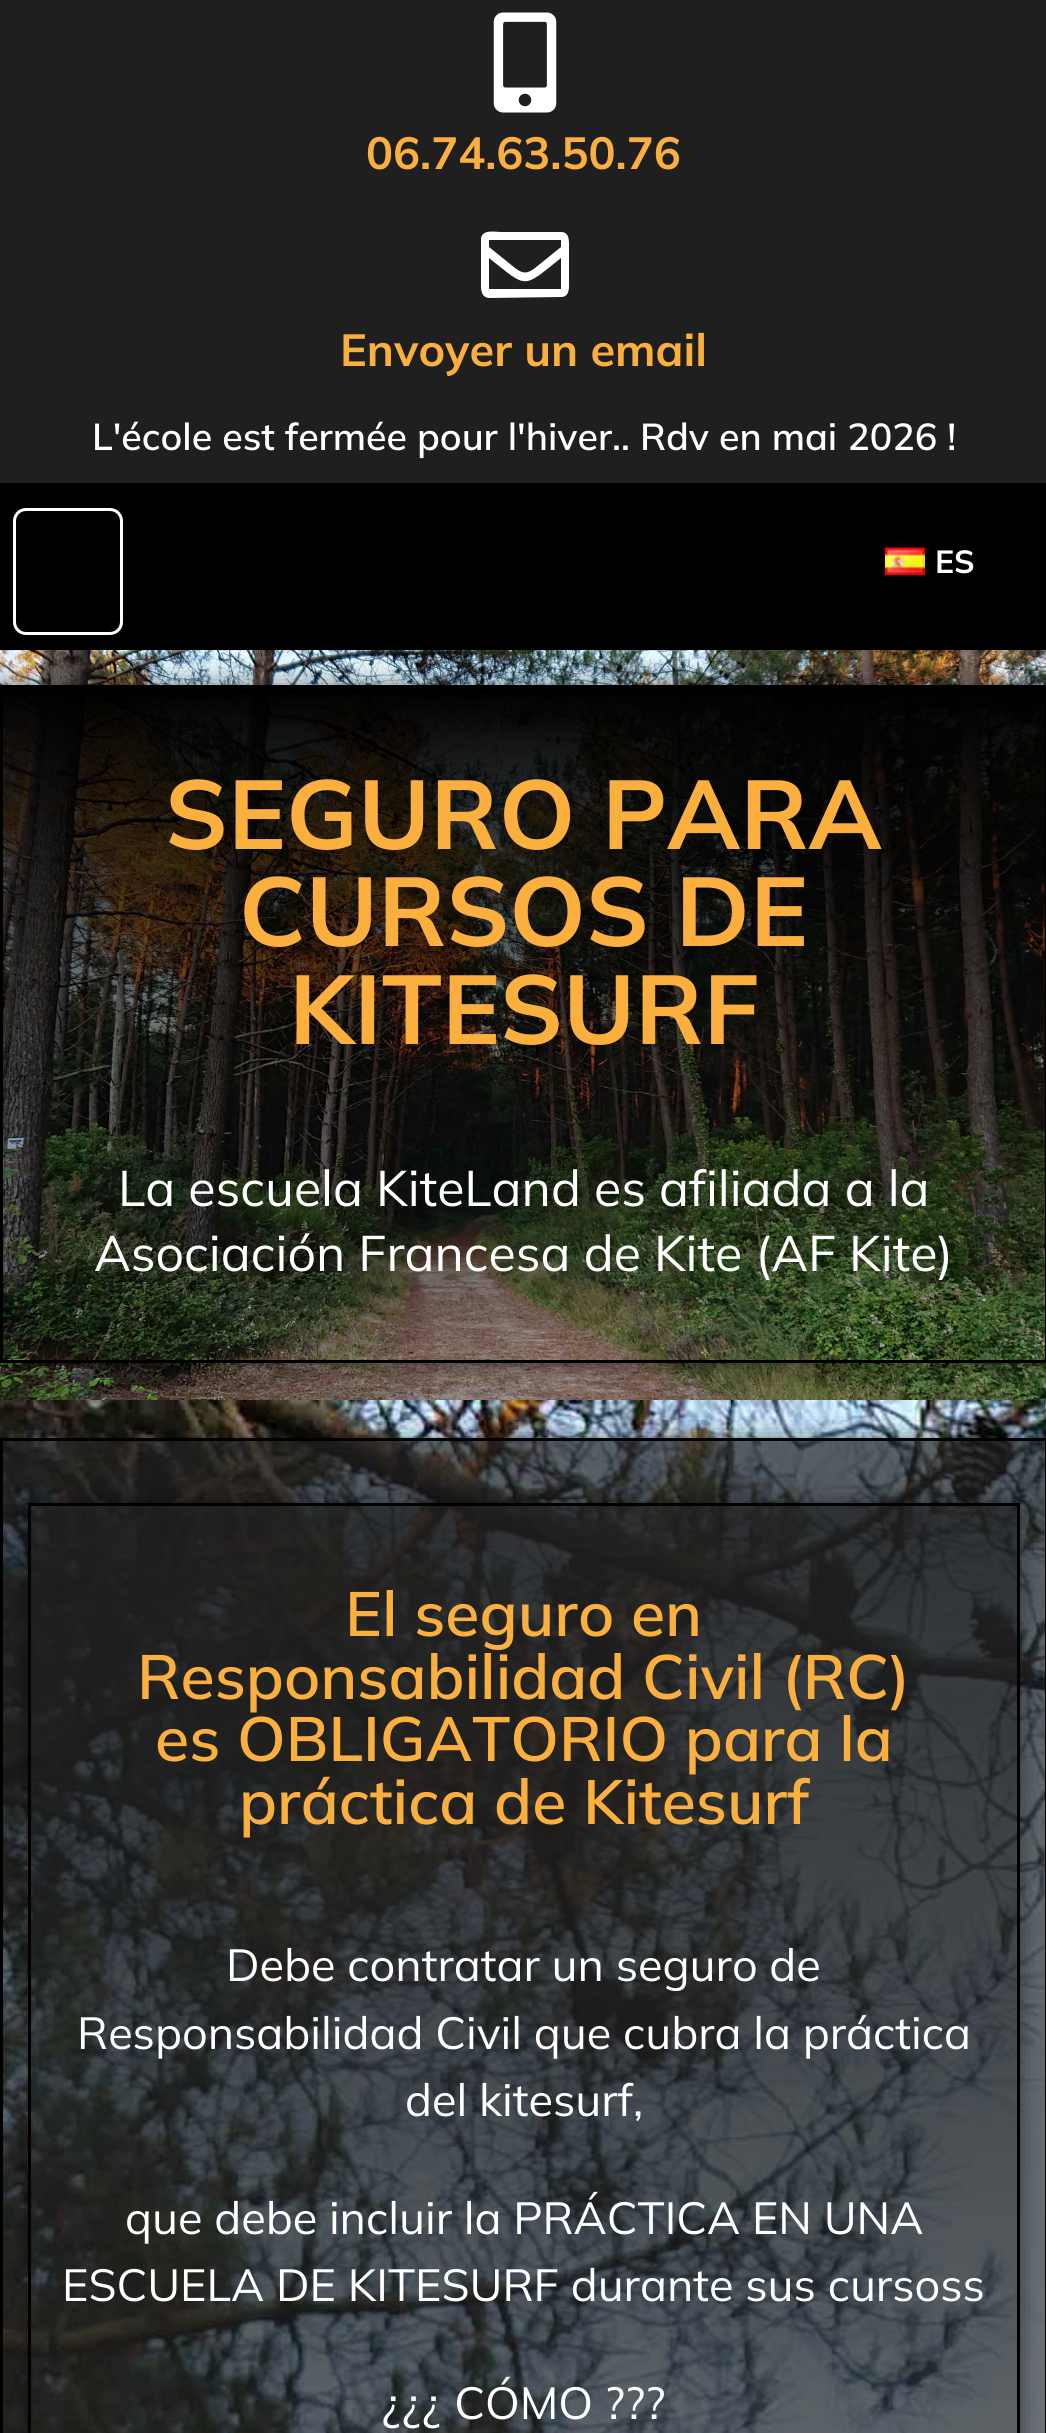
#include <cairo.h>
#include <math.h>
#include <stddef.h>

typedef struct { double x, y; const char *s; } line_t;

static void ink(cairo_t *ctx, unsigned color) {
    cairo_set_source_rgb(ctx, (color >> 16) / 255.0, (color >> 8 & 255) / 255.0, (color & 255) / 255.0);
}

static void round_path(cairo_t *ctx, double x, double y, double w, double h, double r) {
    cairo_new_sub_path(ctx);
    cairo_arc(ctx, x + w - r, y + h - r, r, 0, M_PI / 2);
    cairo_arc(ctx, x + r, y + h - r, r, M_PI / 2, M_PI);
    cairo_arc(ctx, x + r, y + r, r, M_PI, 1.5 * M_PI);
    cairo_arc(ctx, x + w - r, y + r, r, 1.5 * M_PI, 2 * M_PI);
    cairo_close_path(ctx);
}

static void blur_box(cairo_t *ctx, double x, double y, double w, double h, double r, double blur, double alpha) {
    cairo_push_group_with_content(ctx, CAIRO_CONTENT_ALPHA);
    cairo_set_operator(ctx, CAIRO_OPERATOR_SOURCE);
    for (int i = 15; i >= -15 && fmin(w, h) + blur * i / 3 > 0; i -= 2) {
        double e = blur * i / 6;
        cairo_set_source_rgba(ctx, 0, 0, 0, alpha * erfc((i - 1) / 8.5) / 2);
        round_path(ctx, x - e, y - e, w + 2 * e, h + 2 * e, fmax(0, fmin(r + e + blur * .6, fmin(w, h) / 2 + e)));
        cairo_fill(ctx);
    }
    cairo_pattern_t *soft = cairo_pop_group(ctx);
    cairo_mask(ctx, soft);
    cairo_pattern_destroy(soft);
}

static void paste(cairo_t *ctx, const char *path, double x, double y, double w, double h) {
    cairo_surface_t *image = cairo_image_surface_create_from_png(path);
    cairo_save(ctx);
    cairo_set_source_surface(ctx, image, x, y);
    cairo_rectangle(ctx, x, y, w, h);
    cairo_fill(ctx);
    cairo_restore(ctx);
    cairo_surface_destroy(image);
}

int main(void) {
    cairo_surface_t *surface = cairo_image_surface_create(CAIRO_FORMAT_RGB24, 1046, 2433);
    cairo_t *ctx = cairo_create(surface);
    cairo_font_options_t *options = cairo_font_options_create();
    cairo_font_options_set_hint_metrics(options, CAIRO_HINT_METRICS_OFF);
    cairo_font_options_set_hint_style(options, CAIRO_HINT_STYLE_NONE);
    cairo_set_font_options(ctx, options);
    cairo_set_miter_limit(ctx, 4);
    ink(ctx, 0xFFFFFF);
    cairo_paint(ctx);
    ink(ctx, 0x1F1F1F);
    cairo_rectangle(ctx, 0, 0, 1046, 483);
    cairo_fill(ctx);
    paste(ctx, "media/1.png", 493, 12, 64, 101);
    cairo_select_font_face(ctx, "Mulish", CAIRO_FONT_SLANT_NORMAL, CAIRO_FONT_WEIGHT_BOLD);
    cairo_set_font_size(ctx, 45);
    ink(ctx, 0xFBAF3F);
    cairo_move_to(ctx, 366, 169);
    cairo_show_text(ctx, "06.74.63.50.76");
    ink(ctx, 0xFFFFFF);
    cairo_new_path(ctx);
    cairo_move_to(ctx, 561, 232);
    cairo_curve_to(ctx, 570, 232, 569, 242, 569, 248);
    cairo_line_to(ctx, 569, 281);
    cairo_curve_to(ctx, 569, 287, 570, 296, 562, 297);
    cairo_line_to(ctx, 489, 298);
    cairo_curve_to(ctx, 480, 297, 481, 288, 481, 281);
    cairo_line_to(ctx, 481, 238);
    cairo_curve_to(ctx, 483, 229, 495, 232, 501, 232);
    cairo_close_path(ctx);
    cairo_move_to(ctx, 561, 240);
    cairo_line_to(ctx, 489, 240);
    cairo_line_to(ctx, 489, 247);
    cairo_line_to(ctx, 515, 268);
    cairo_curve_to(ctx, 523, 274, 527, 274, 535, 268);
    cairo_line_to(ctx, 561, 247);
    cairo_close_path(ctx);
    cairo_move_to(ctx, 489, 289);
    cairo_line_to(ctx, 561, 289);
    cairo_line_to(ctx, 561, 258);
    cairo_curve_to(ctx, 522, 289, 528, 289, 489, 258);
    cairo_close_path(ctx);
    cairo_fill(ctx);
    ink(ctx, 0xFBAF3F);
    cairo_move_to(ctx, 340, 366);
    cairo_show_text(ctx, "Envoyer un email");
    cairo_select_font_face(ctx, "Mulish SemiBold", CAIRO_FONT_SLANT_NORMAL, CAIRO_FONT_WEIGHT_NORMAL);
    cairo_set_font_size(ctx, 37.5);
    ink(ctx, 0xFFFFFF);
    cairo_move_to(ctx, 92, 450);
    cairo_show_text(ctx, "L'école est fermée pour l'hiver.. Rdv en mai 2026 !");
    paste(ctx, "media/3.png", 0, 650, 1046, 750);
    cairo_save(ctx);
    cairo_set_fill_rule(ctx, CAIRO_FILL_RULE_EVEN_ODD);
    cairo_new_path(ctx);
    cairo_move_to(ctx, 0, 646);
    cairo_line_to(ctx, 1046, 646);
    cairo_line_to(ctx, 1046, 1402);
    cairo_line_to(ctx, 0, 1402);
    cairo_close_path(ctx);
    cairo_move_to(ctx, 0, 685);
    cairo_line_to(ctx, 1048, 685);
    cairo_line_to(ctx, 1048, 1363);
    cairo_line_to(ctx, 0, 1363);
    cairo_close_path(ctx);
    cairo_clip(ctx);
    ink(ctx, 0x000000);
    blur_box(ctx, 0, 685, 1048, 678, 0, 12.5, 0.5);
    cairo_restore(ctx);
    ink(ctx, 0x000000);
    cairo_rectangle(ctx, 0, 483, 1046, 167);
    cairo_fill(ctx);
    round_path(ctx, 14.5, 509.5, 107, 124, 11.5);
    ink(ctx, 0xFFFFFF);
    cairo_set_line_width(ctx, 3);
    cairo_stroke(ctx);
    paste(ctx, "media/2.png", 885, 547, 40, 28);
    cairo_select_font_face(ctx, "Mulish", CAIRO_FONT_SLANT_NORMAL, CAIRO_FONT_WEIGHT_BOLD);
    cairo_set_font_size(ctx, 32);
    cairo_move_to(ctx, 935, 573);
    cairo_show_text(ctx, "ES");
    cairo_rectangle(ctx, 1.5, 686.5, 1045, 675);
    ink(ctx, 0x000000);
    cairo_stroke(ctx);
    cairo_set_font_size(ctx, 97.5);
    ink(ctx, 0xFBAF3F);
    {
        static const line_t items[] = {
            {165, 849, "SEGURO PARA"},
            {239, 946, "CURSOS DE"},
            {289, 1044, "KITESURF"},
        };
        for (size_t i = 0; i < sizeof items / sizeof *items; i++) {
            cairo_move_to(ctx, items[i].x, items[i].y);
            cairo_show_text(ctx, items[i].s);
        }
    }
    cairo_select_font_face(ctx, "Mulish", CAIRO_FONT_SLANT_NORMAL, CAIRO_FONT_WEIGHT_NORMAL);
    cairo_set_font_size(ctx, 50);
    ink(ctx, 0xFFFFFF);
    cairo_move_to(ctx, 118, 1206);
    cairo_show_text(ctx, "La escuela KiteLand es afiliada a la");
    cairo_move_to(ctx, 94, 1271);
    cairo_show_text(ctx, "Asociación Francesa de Kite (AF Kite)");
    paste(ctx, "media/4.png", 0, 1400, 1046, 1033);
    cairo_save(ctx);
    cairo_rectangle(ctx, 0, 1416, 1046, 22);
    cairo_clip(ctx);
    ink(ctx, 0x000000);
    blur_box(ctx, 0, 1438, 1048, 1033, 0, 12.5, 0.5);
    cairo_restore(ctx);
    cairo_rectangle(ctx, 1.5, 1439.5, 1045, 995);
    ink(ctx, 0x000000);
    cairo_stroke(ctx);
    cairo_save(ctx);
    cairo_set_fill_rule(ctx, CAIRO_FILL_RULE_EVEN_ODD);
    cairo_new_path(ctx);
    cairo_move_to(ctx, 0, 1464);
    cairo_line_to(ctx, 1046, 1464);
    cairo_line_to(ctx, 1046, 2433);
    cairo_line_to(ctx, 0, 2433);
    cairo_close_path(ctx);
    cairo_move_to(ctx, 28, 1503);
    cairo_line_to(ctx, 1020, 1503);
    cairo_line_to(ctx, 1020, 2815);
    cairo_line_to(ctx, 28, 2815);
    cairo_close_path(ctx);
    cairo_clip(ctx);
    ink(ctx, 0x000000);
    blur_box(ctx, 28, 1503, 992, 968, 0, 12.5, 0.5);
    cairo_restore(ctx);
    cairo_rectangle(ctx, 29.5, 1504.5, 989, 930);
    cairo_stroke(ctx);
    cairo_select_font_face(ctx, "Mulish SemiBold", CAIRO_FONT_SLANT_NORMAL, CAIRO_FONT_WEIGHT_NORMAL);
    cairo_set_font_size(ctx, 62.5);
    ink(ctx, 0xFBAF3F);
    {
        static const line_t items[] = {
            {345, 1636, "El seguro en"},
            {137, 1699, "Responsabilidad Civil (RC)"},
            {155, 1761, "es OBLIGATORIO para la"},
            {239, 1824, "práctica de Kitesurf"},
        };
        for (size_t i = 0; i < sizeof items / sizeof *items; i++) {
            cairo_move_to(ctx, items[i].x, items[i].y);
            cairo_show_text(ctx, items[i].s);
        }
    }
    cairo_select_font_face(ctx, "Mulish", CAIRO_FONT_SLANT_NORMAL, CAIRO_FONT_WEIGHT_NORMAL);
    cairo_set_font_size(ctx, 45);
    ink(ctx, 0xFFFFFF);
    {
        static const line_t items[] = {
            {226, 1981, "Debe contratar un seguro de"},
            {77, 2049, "Responsabilidad Civil que cubra la práctica"},
            {405, 2116, "del kitesurf,"},
            {125, 2234, "que debe incluir la PRÁCTICA EN UNA"},
            {62, 2301, "ESCUELA DE KITESURF durante sus cursoss"},
            {382, 2419, "¿¿¿ CÓMO ?\077?"},
        };
        for (size_t i = 0; i < sizeof items / sizeof *items; i++) {
            cairo_move_to(ctx, items[i].x, items[i].y);
            cairo_show_text(ctx, items[i].s);
        }
    }
    cairo_surface_write_to_png(surface, "image.png");
    cairo_font_options_destroy(options);
    cairo_destroy(ctx);
    cairo_surface_destroy(surface);
    return 0;
}
